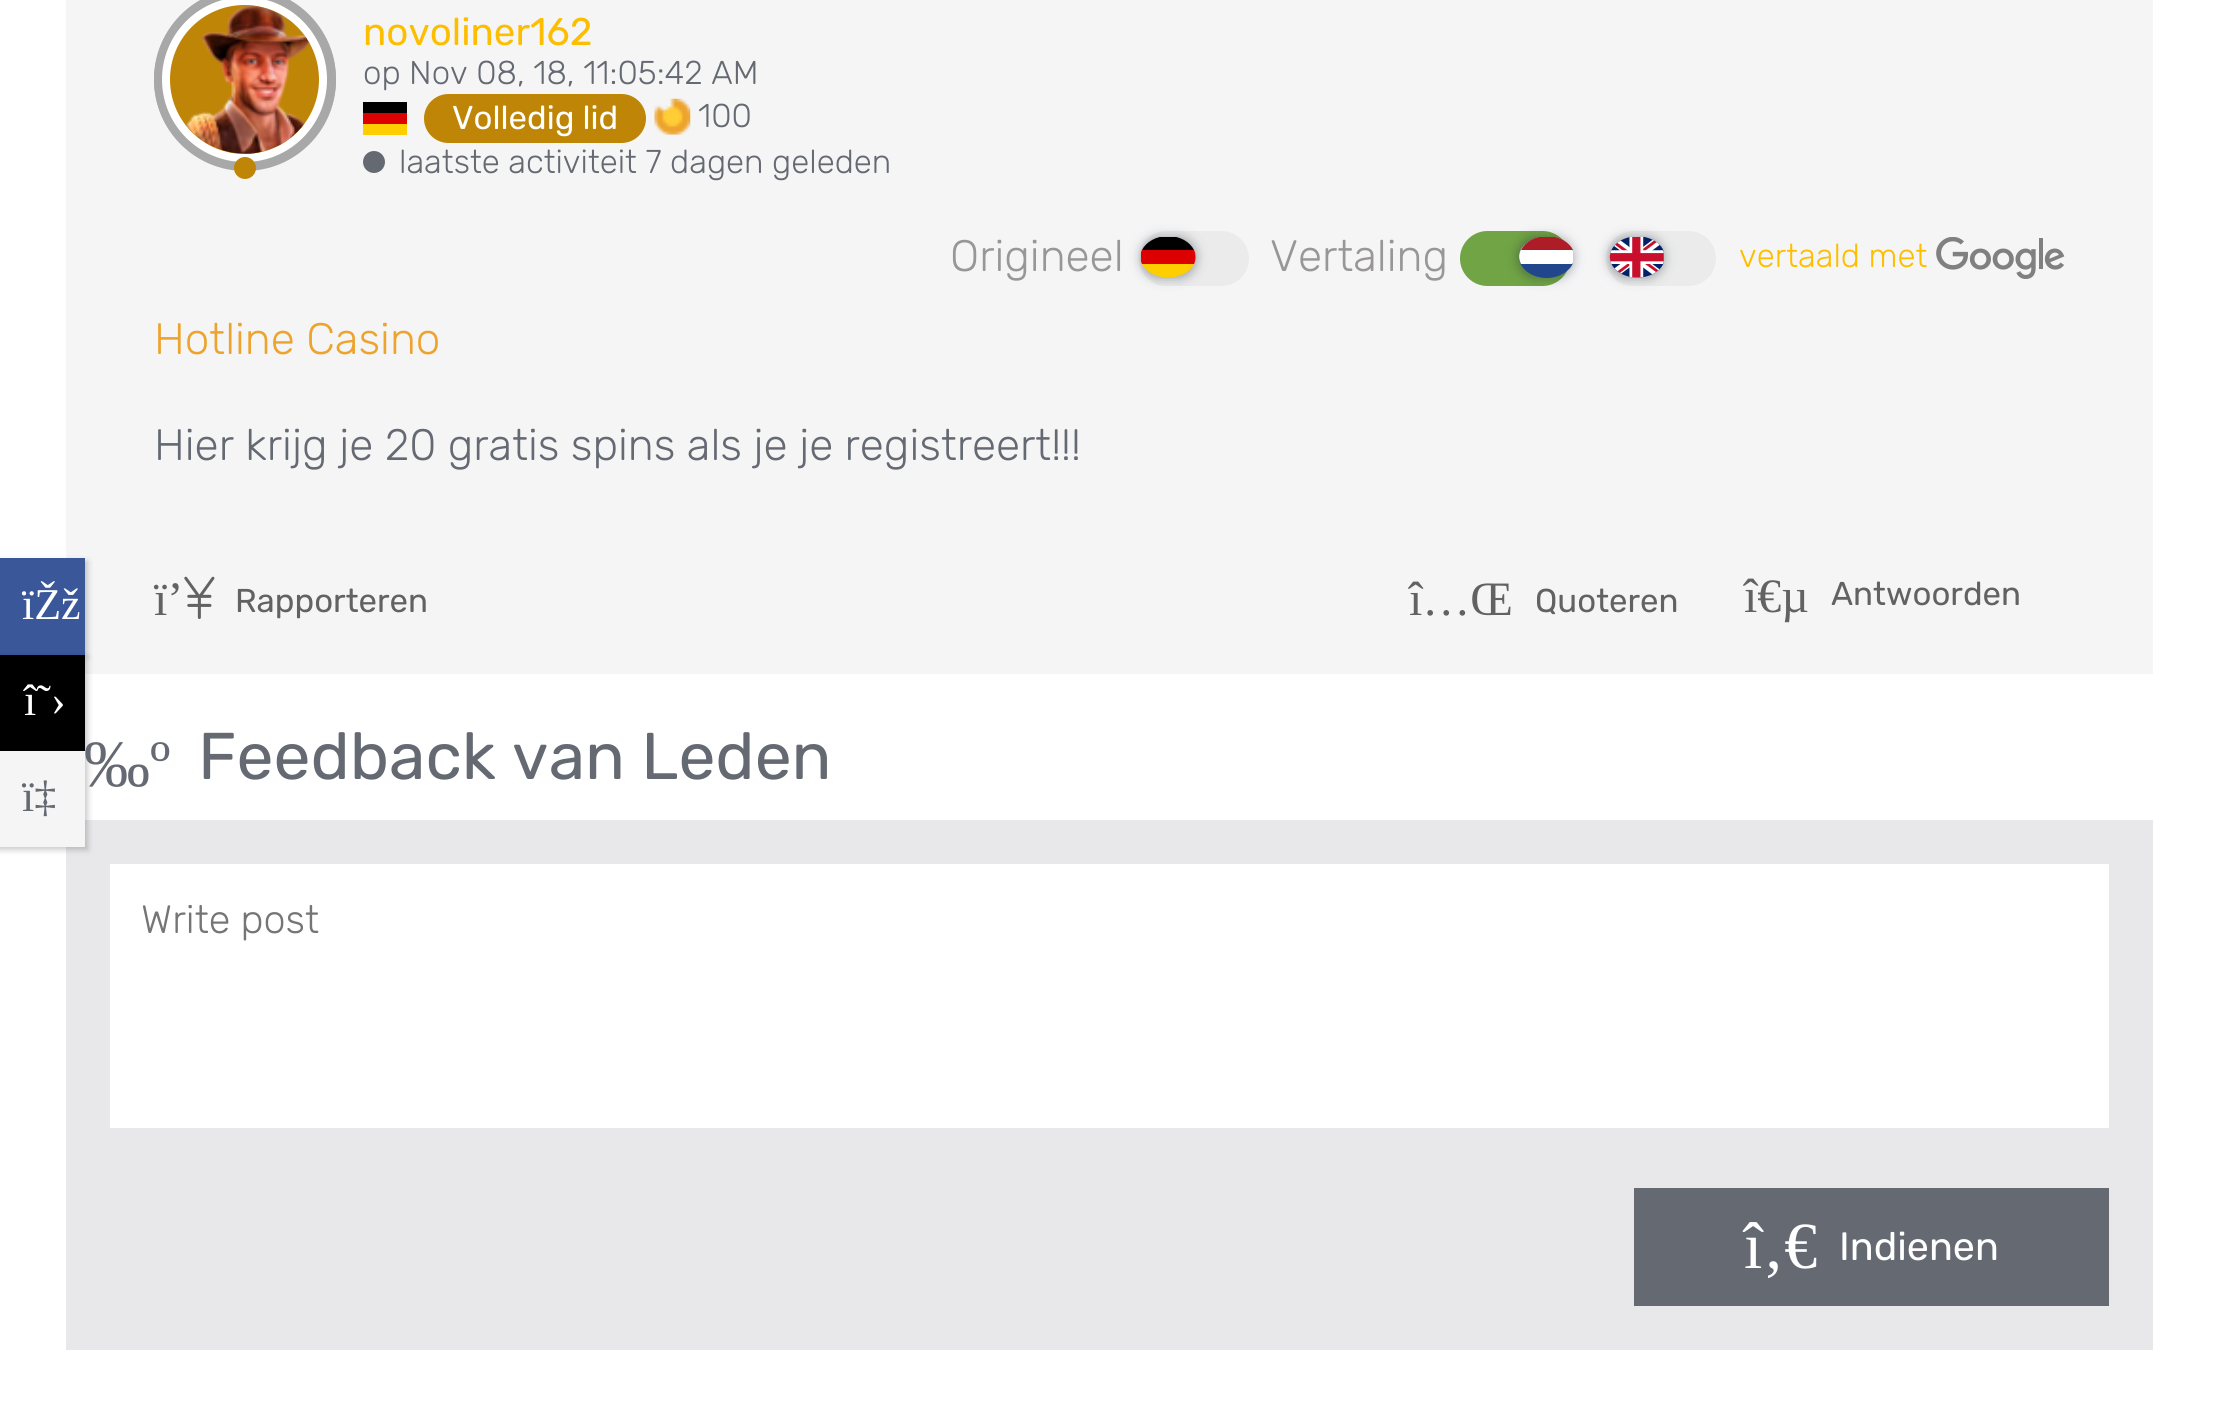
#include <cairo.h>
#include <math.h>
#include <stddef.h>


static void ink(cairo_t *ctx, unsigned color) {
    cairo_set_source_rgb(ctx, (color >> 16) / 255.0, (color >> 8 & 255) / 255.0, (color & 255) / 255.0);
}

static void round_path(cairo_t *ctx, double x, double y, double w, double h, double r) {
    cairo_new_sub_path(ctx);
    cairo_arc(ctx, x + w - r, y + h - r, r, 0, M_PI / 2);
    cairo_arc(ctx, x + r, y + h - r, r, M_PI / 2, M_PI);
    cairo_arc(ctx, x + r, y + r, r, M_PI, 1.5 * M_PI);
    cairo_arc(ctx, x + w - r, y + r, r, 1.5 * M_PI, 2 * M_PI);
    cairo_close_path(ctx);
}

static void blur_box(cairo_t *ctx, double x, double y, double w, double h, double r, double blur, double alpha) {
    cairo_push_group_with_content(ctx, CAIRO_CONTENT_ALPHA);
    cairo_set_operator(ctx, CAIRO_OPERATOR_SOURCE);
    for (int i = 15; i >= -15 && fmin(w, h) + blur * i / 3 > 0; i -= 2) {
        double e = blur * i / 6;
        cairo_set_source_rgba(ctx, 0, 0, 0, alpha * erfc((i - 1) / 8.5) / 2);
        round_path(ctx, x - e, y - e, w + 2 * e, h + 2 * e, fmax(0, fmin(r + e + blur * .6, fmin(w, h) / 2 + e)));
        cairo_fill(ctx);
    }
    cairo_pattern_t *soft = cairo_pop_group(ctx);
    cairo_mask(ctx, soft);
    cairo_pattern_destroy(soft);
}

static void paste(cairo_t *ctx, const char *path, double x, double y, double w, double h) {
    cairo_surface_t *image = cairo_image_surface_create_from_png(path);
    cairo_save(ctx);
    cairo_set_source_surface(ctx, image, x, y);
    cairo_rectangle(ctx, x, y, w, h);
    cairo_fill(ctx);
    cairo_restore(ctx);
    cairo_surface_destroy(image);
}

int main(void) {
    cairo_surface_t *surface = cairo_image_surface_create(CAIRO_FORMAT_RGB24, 2219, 1402);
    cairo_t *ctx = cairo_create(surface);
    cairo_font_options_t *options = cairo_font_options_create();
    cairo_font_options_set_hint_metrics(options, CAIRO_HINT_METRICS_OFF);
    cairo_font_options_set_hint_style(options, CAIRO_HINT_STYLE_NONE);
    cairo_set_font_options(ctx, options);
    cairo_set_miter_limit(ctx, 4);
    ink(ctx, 0xFFFFFF);
    cairo_paint(ctx);
    ink(ctx, 0xF5F5F6);
    cairo_rectangle(ctx, 66, 0, 2087, 674);
    cairo_fill(ctx);
    ink(ctx, 0x000000);
    blur_box(ctx, -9, 561, 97, 96, 0, 3, 0.2);
    ink(ctx, 0x3A579A);
    cairo_rectangle(ctx, 0, 558, 85, 97);
    cairo_fill(ctx);
    cairo_select_font_face(ctx, "Liberation Serif", CAIRO_FONT_SLANT_NORMAL, CAIRO_FONT_WEIGHT_NORMAL);
    cairo_set_font_size(ctx, 44);
    ink(ctx, 0xFFFFFF);
    cairo_move_to(ctx, 22, 619);
    cairo_show_text(ctx, "ïŽž");
    ink(ctx, 0x000000);
    blur_box(ctx, -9, 657, 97, 97, 0, 3, 0.2);
    ink(ctx, 0x000000);
    cairo_rectangle(ctx, 0, 655, 85, 96);
    cairo_fill(ctx);
    ink(ctx, 0xFFFFFF);
    cairo_move_to(ctx, 24, 715);
    cairo_show_text(ctx, "î˜›");
    ink(ctx, 0xE8E8EA);
    cairo_rectangle(ctx, 66, 820, 2087, 530);
    cairo_fill(ctx);
    ink(ctx, 0x000000);
    blur_box(ctx, -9, 754, 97, 96, 0, 3, 0.2);
    ink(ctx, 0xF5F5F6);
    cairo_rectangle(ctx, 0, 751, 85, 96);
    cairo_fill(ctx);
    ink(ctx, 0x656972);
    cairo_move_to(ctx, 22, 811);
    cairo_show_text(ctx, "ï‡");
    ink(ctx, 0xA8A8A8);
    cairo_new_path(ctx);
    cairo_arc(ctx, 245, 80, 91, 0, 2 * M_PI);
    cairo_fill(ctx);
    cairo_new_path(ctx);
    cairo_move_to(ctx, 245, 79);
    cairo_line_to(ctx, 245, 169);
    cairo_curve_to(ctx, 195, 169, 154, 129, 154, 79);
    cairo_curve_to(ctx, 154, 29, 195, -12, 245, -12);
    cairo_curve_to(ctx, 295, -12, 336, 29, 336, 79);
    cairo_curve_to(ctx, 336, 129, 295, 169, 245, 169);
    cairo_close_path(ctx);
    cairo_fill(ctx);
    ink(ctx, 0xBF8506);
    cairo_arc(ctx, 244.5, 79.5, 78.5, 0, 2 * M_PI);
    cairo_fill_preserve(ctx);
    ink(ctx, 0xFFFFFF);
    cairo_set_line_width(ctx, 8);
    cairo_stroke(ctx);
    paste(ctx, "media/1.png", 186, 5, 124, 149);
    ink(ctx, 0xBF8506);
    cairo_arc(ctx, 245, 168, 11, 0, 2 * M_PI);
    cairo_fill(ctx);
    cairo_select_font_face(ctx, "Rubik", CAIRO_FONT_SLANT_NORMAL, CAIRO_FONT_WEIGHT_NORMAL);
    cairo_set_font_size(ctx, 38.5);
    ink(ctx, 0xFDBE00);
    cairo_move_to(ctx, 363, 45);
    cairo_show_text(ctx, "novoliner162");
    cairo_select_font_face(ctx, "Rubik Light", CAIRO_FONT_SLANT_NORMAL, CAIRO_FONT_WEIGHT_NORMAL);
    cairo_set_font_size(ctx, 33);
    ink(ctx, 0x656972);
    cairo_move_to(ctx, 363, 84);
    cairo_show_text(ctx, "op Nov 08, 18, 11:05:42 AM");
    ink(ctx, 0x000000);
    cairo_rectangle(ctx, 363, 102, 44, 11);
    cairo_fill(ctx);
    ink(ctx, 0xBF8506);
    round_path(ctx, 424, 94, 222, 49, 24.5);
    cairo_fill(ctx);
    cairo_select_font_face(ctx, "Rubik", CAIRO_FONT_SLANT_NORMAL, CAIRO_FONT_WEIGHT_NORMAL);
    ink(ctx, 0xFFFFFF);
    cairo_move_to(ctx, 452, 129);
    cairo_show_text(ctx, "Volledig lid");
    paste(ctx, "media/2.png", 654, 98, 37, 37);
    cairo_select_font_face(ctx, "Rubik Light", CAIRO_FONT_SLANT_NORMAL, CAIRO_FONT_WEIGHT_NORMAL);
    ink(ctx, 0x656972);
    cairo_move_to(ctx, 698, 127);
    cairo_show_text(ctx, "100");
    ink(ctx, 0xDD0000);
    cairo_rectangle(ctx, 363, 113, 44, 11);
    cairo_fill(ctx);
    ink(ctx, 0xFFCE00);
    cairo_rectangle(ctx, 363, 124, 44, 11);
    cairo_fill(ctx);
    ink(ctx, 0x656972);
    cairo_arc(ctx, 374, 162, 11, 0, 2 * M_PI);
    cairo_fill(ctx);
    cairo_move_to(ctx, 399, 173);
    cairo_show_text(ctx, "laatste activiteit 7 dagen geleden");
    cairo_set_font_size(ctx, 44);
    ink(ctx, 0x989696);
    cairo_move_to(ctx, 950, 271);
    cairo_show_text(ctx, "Origineel");
    ink(ctx, 0xEBEBEB);
    round_path(ctx, 1139, 231, 110, 55, 27.5);
    cairo_fill(ctx);
    ink(ctx, 0x1D2730);
    blur_box(ctx, 1141, 237, 55, 41, 20.5, 5.5, 0.4);
    cairo_save(ctx);
    cairo_rectangle(ctx, 1141, 237, 55, 41);
    cairo_clip(ctx);
    ink(ctx, 0x000000);
    cairo_new_path(ctx);
    cairo_move_to(ctx, 1168, 236);
    cairo_curve_to(ctx, 1180, 236, 1190, 242, 1194, 250);
    cairo_line_to(ctx, 1142, 250);
    cairo_curve_to(ctx, 1146, 242, 1156, 236, 1168, 236);
    cairo_close_path(ctx);
    cairo_fill(ctx);
    ink(ctx, 0xDD0000);
    cairo_new_path(ctx);
    cairo_move_to(ctx, 1141, 252);
    cairo_line_to(ctx, 1142, 250);
    cairo_line_to(ctx, 1194, 250);
    cairo_curve_to(ctx, 1196, 254, 1196, 260, 1194, 264);
    cairo_line_to(ctx, 1142, 264);
    cairo_curve_to(ctx, 1140, 260, 1141, 256, 1141, 252);
    cairo_close_path(ctx);
    cairo_fill(ctx);
    cairo_restore(ctx);
    ink(ctx, 0xFFCE00);
    cairo_new_path(ctx);
    cairo_move_to(ctx, 1194, 264);
    cairo_curve_to(ctx, 1185, 282, 1151, 282, 1142, 264);
    cairo_close_path(ctx);
    cairo_fill(ctx);
    ink(ctx, 0x989696);
    cairo_move_to(ctx, 1270, 271);
    cairo_show_text(ctx, "Vertaling");
    ink(ctx, 0x70A445);
    round_path(ctx, 1460, 231, 110, 55, 27.5);
    cairo_fill(ctx);
    ink(ctx, 0x1D2730);
    blur_box(ctx, 1518, 237, 55, 41, 20.5, 5.5, 0.4);
    cairo_save(ctx);
    cairo_rectangle(ctx, 1518, 237, 55, 41);
    cairo_clip(ctx);
    ink(ctx, 0x21468B);
    cairo_new_path(ctx);
    cairo_move_to(ctx, 1547, 236);
    cairo_curve_to(ctx, 1559, 236, 1570, 243, 1573, 251);
    cairo_line_to(ctx, 1573, 263);
    cairo_curve_to(ctx, 1570, 271, 1559, 278, 1547, 278);
    cairo_curve_to(ctx, 1531, 278, 1519, 268, 1519, 257);
    cairo_curve_to(ctx, 1519, 246, 1531, 236, 1547, 236);
    cairo_close_path(ctx);
    cairo_fill(ctx);
    ink(ctx, 0xFFFFFF);
    cairo_new_path(ctx);
    cairo_move_to(ctx, 1547, 236);
    cairo_curve_to(ctx, 1559, 236, 1570, 243, 1573, 251);
    cairo_line_to(ctx, 1573, 263);
    cairo_line_to(ctx, 1572, 264);
    cairo_line_to(ctx, 1521, 264);
    cairo_curve_to(ctx, 1513, 248, 1532, 236, 1547, 236);
    cairo_close_path(ctx);
    cairo_fill(ctx);
    ink(ctx, 0xAE1C28);
    cairo_new_path(ctx);
    cairo_move_to(ctx, 1547, 236);
    cairo_curve_to(ctx, 1559, 236, 1569, 242, 1573, 250);
    cairo_line_to(ctx, 1521, 250);
    cairo_curve_to(ctx, 1525, 242, 1535, 236, 1547, 236);
    cairo_close_path(ctx);
    cairo_fill(ctx);
    cairo_restore(ctx);
    ink(ctx, 0xEBEBEB);
    round_path(ctx, 1606, 231, 110, 55, 27.5);
    cairo_fill(ctx);
    ink(ctx, 0x1D2730);
    blur_box(ctx, 1609, 237, 55, 41, 20.5, 5.5, 0.4);
    paste(ctx, "media/3.png", 1609, 237, 55, 41);
    cairo_set_font_size(ctx, 33);
    ink(ctx, 0xFDBE00);
    cairo_move_to(ctx, 1739, 267);
    cairo_show_text(ctx, "vertaald met");
    paste(ctx, "media/4.png", 1936, 237, 129, 42);
    cairo_set_font_size(ctx, 44);
    ink(ctx, 0xEDA42E);
    cairo_move_to(ctx, 154, 354);
    cairo_show_text(ctx, "Hotline Casino");
    ink(ctx, 0x656972);
    cairo_move_to(ctx, 154, 460);
    cairo_show_text(ctx, "Hier krijg je 20 gratis spins als je je registreert!!!");
    paste(ctx, "media/5.png", 184, 576, 31, 43);
    cairo_select_font_face(ctx, "Liberation Serif", CAIRO_FONT_SLANT_NORMAL, CAIRO_FONT_WEIGHT_NORMAL);
    cairo_set_font_size(ctx, 48);
    ink(ctx, 0x626262);
    cairo_move_to(ctx, 154, 615);
    cairo_show_text(ctx, "ï’");
    cairo_select_font_face(ctx, "Rubik", CAIRO_FONT_SLANT_NORMAL, CAIRO_FONT_WEIGHT_NORMAL);
    cairo_set_font_size(ctx, 33);
    cairo_move_to(ctx, 235, 612);
    cairo_show_text(ctx, "Rapporteren");
    cairo_select_font_face(ctx, "Liberation Serif", CAIRO_FONT_SLANT_NORMAL, CAIRO_FONT_WEIGHT_NORMAL);
    cairo_set_font_size(ctx, 48);
    cairo_move_to(ctx, 1409, 615);
    cairo_show_text(ctx, "î…Œ");
    cairo_select_font_face(ctx, "Rubik", CAIRO_FONT_SLANT_NORMAL, CAIRO_FONT_WEIGHT_NORMAL);
    cairo_set_font_size(ctx, 33);
    cairo_move_to(ctx, 1535, 612);
    cairo_show_text(ctx, "Quoteren");
    cairo_select_font_face(ctx, "Liberation Serif", CAIRO_FONT_SLANT_NORMAL, CAIRO_FONT_WEIGHT_NORMAL);
    cairo_set_font_size(ctx, 48);
    cairo_move_to(ctx, 1744, 612);
    cairo_show_text(ctx, "î€µ");
    cairo_select_font_face(ctx, "Rubik", CAIRO_FONT_SLANT_NORMAL, CAIRO_FONT_WEIGHT_NORMAL);
    cairo_set_font_size(ctx, 33);
    cairo_move_to(ctx, 1831, 605);
    cairo_show_text(ctx, "Antwoorden");
    cairo_select_font_face(ctx, "Liberation Serif", CAIRO_FONT_SLANT_NORMAL, CAIRO_FONT_WEIGHT_NORMAL);
    cairo_set_font_size(ctx, 66);
    ink(ctx, 0x656972);
    cairo_move_to(ctx, 84, 786);
    cairo_show_text(ctx, "‰º");
    cairo_select_font_face(ctx, "Rubik", CAIRO_FONT_SLANT_NORMAL, CAIRO_FONT_WEIGHT_NORMAL);
    cairo_move_to(ctx, 198, 779);
    cairo_show_text(ctx, "Feedback van Leden");
    ink(ctx, 0xFFFFFF);
    cairo_rectangle(ctx, 110, 864, 1999, 264);
    cairo_fill(ctx);
    cairo_select_font_face(ctx, "Rubik Light", CAIRO_FONT_SLANT_NORMAL, CAIRO_FONT_WEIGHT_NORMAL);
    cairo_set_font_size(ctx, 39.5);
    ink(ctx, 0x757575);
    cairo_move_to(ctx, 141, 933);
    cairo_show_text(ctx, "Write post");
    ink(ctx, 0x656972);
    cairo_rectangle(ctx, 1634, 1188, 475, 118);
    cairo_fill(ctx);
    cairo_select_font_face(ctx, "Liberation Serif", CAIRO_FONT_SLANT_NORMAL, CAIRO_FONT_WEIGHT_NORMAL);
    cairo_set_font_size(ctx, 66);
    ink(ctx, 0xFFFFFF);
    cairo_move_to(ctx, 1744, 1268);
    cairo_show_text(ctx, "î‚€");
    cairo_select_font_face(ctx, "Rubik", CAIRO_FONT_SLANT_NORMAL, CAIRO_FONT_WEIGHT_NORMAL);
    cairo_set_font_size(ctx, 39.5);
    cairo_move_to(ctx, 1839, 1260);
    cairo_show_text(ctx, "Indienen");
    cairo_surface_write_to_png(surface, "image.png");
    cairo_font_options_destroy(options);
    cairo_destroy(ctx);
    cairo_surface_destroy(surface);
    return 0;
}
